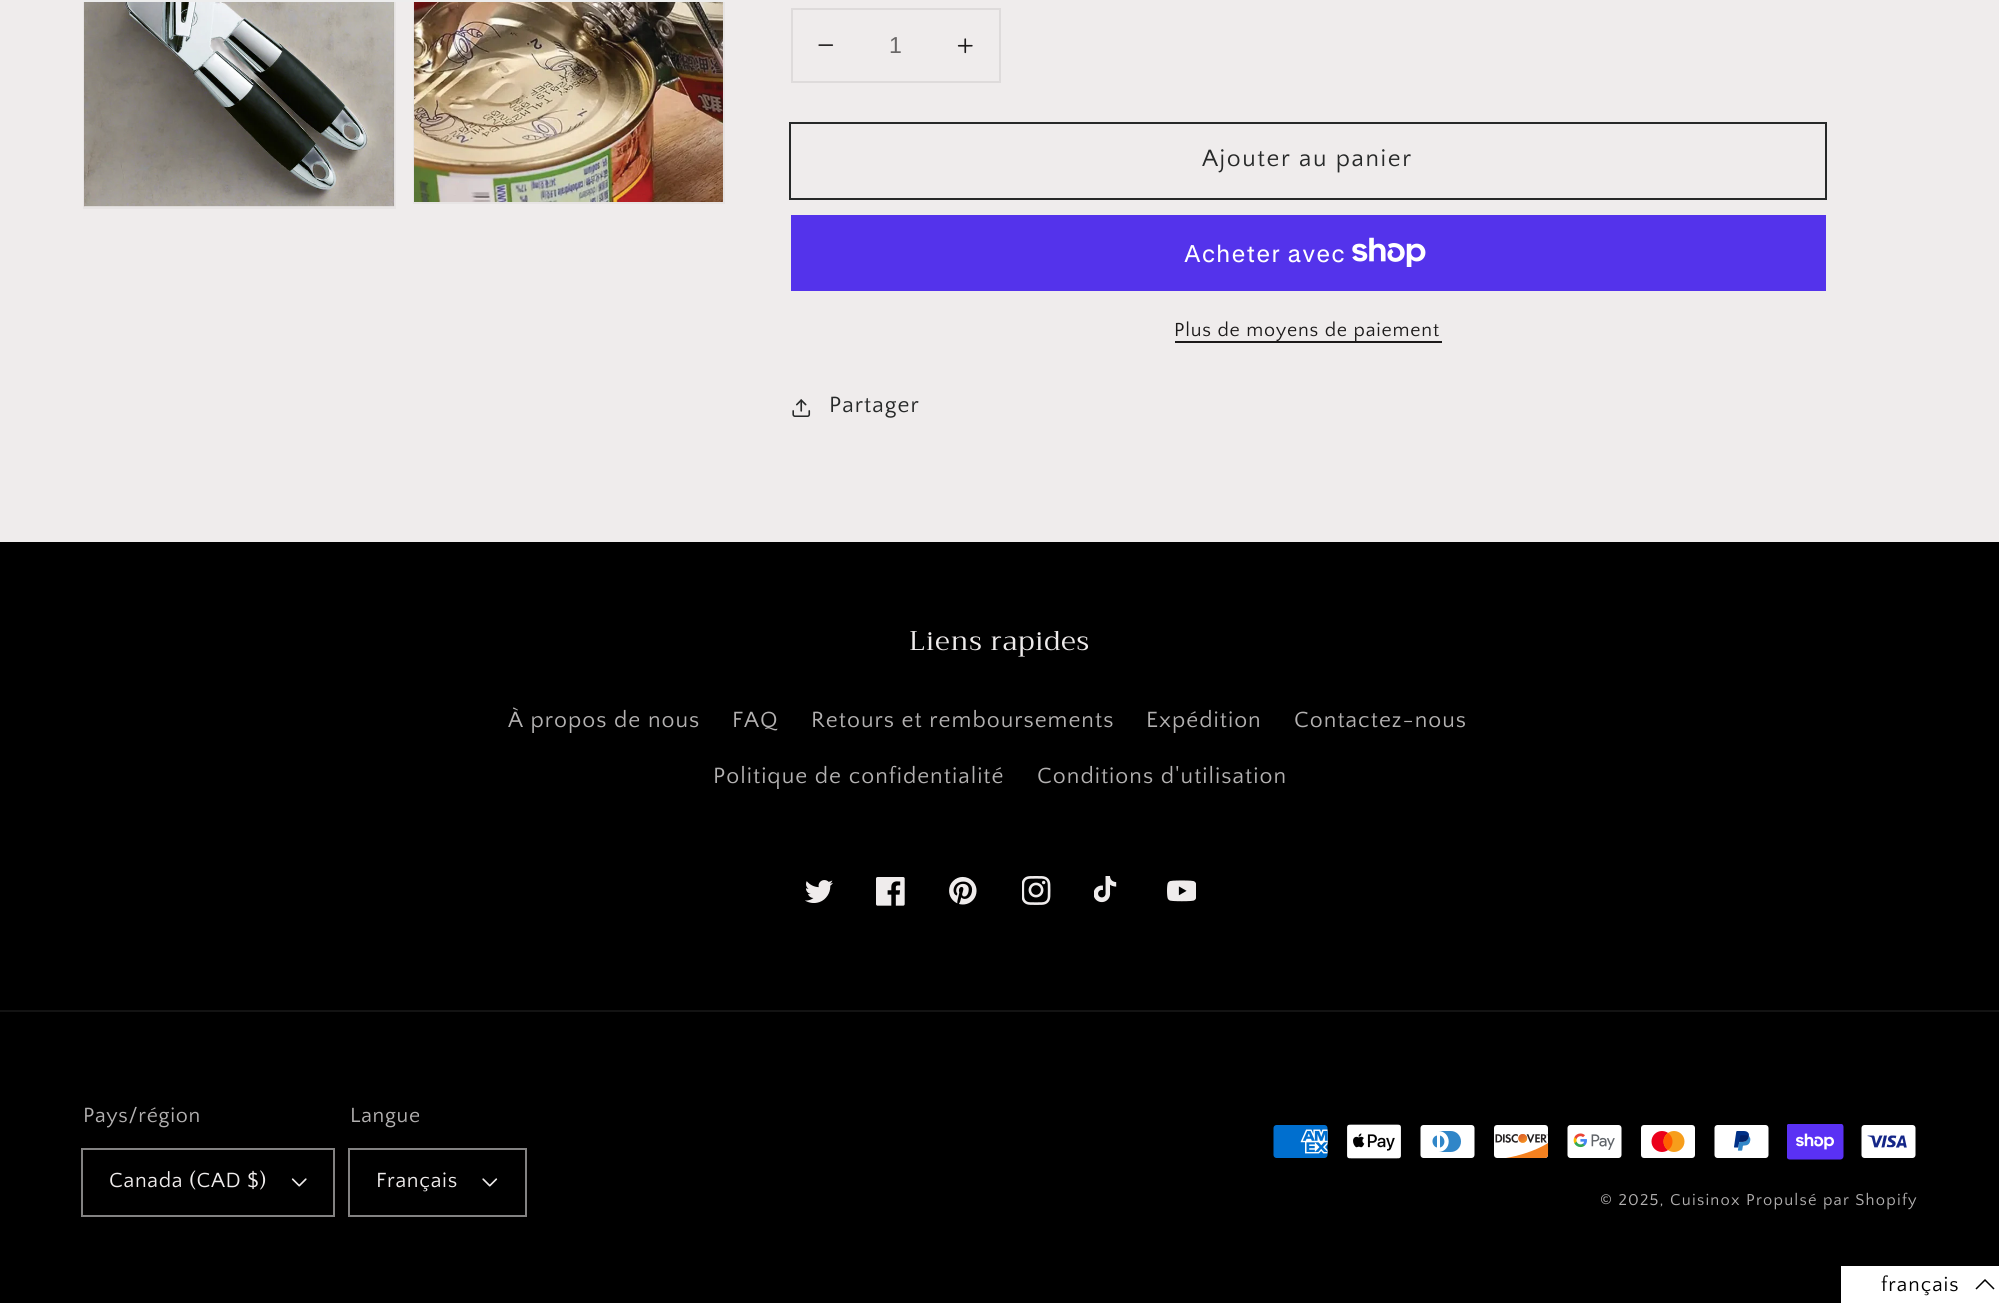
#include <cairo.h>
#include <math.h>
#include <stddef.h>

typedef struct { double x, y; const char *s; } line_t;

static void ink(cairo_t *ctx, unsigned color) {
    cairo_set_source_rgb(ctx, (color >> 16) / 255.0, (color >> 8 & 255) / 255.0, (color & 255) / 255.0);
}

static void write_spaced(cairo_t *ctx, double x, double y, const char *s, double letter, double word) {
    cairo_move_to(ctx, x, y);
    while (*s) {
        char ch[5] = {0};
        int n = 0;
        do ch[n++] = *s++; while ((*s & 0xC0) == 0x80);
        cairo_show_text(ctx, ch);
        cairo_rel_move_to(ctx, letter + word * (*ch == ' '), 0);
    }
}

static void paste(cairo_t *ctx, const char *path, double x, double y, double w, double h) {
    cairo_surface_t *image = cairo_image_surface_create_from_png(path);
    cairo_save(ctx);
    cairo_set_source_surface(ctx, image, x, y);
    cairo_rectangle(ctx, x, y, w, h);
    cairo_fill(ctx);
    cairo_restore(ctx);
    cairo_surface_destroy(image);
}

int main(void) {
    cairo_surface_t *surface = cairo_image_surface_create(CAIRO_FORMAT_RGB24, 1999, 1303);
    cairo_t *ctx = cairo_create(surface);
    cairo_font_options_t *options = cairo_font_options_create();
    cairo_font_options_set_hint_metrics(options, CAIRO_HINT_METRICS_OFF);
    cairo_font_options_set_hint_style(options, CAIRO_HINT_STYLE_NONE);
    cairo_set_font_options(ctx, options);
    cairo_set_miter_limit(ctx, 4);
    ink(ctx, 0xEFECEC);
    cairo_paint(ctx);
    cairo_rectangle(ctx, 84, -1, 311, 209);
    ink(ctx, 0xE7E4E4);
    cairo_stroke(ctx);
    cairo_rectangle(ctx, 414, -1, 310, 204);
    cairo_stroke(ctx);
    ink(ctx, 0xEDEDED);
    cairo_rectangle(ctx, 83, 0, 642, 2);
    cairo_fill(ctx);
    paste(ctx, "media/1.png", 84, 2, 311, 205);
    paste(ctx, "media/2.png", 414, 2, 309, 200);
    cairo_rectangle(ctx, 792, 9, 208, 73);
    ink(ctx, 0xDEDBDB);
    cairo_stroke(ctx);
    paste(ctx, "media/3.png", 818, 44, 16, 2);
    cairo_select_font_face(ctx, "Liberation Sans", CAIRO_FONT_SLANT_NORMAL, CAIRO_FONT_WEIGHT_NORMAL);
    cairo_set_font_size(ctx, 23.1);
    ink(ctx, 0x696767);
    cairo_move_to(ctx, 889, 53);
    cairo_show_text(ctx, "1");
    paste(ctx, "media/4.png", 957, 38, 16, 16);
    cairo_rectangle(ctx, 790, 123, 1036, 76);
    ink(ctx, 0x272929);
    cairo_stroke(ctx);
    cairo_select_font_face(ctx, "Quattrocento Sans", CAIRO_FONT_SLANT_NORMAL, CAIRO_FONT_WEIGHT_NORMAL);
    cairo_set_font_size(ctx, 24.75);
    write_spaced(ctx, 1202, 166, "Ajouter au panier", 1.6, 0);
    ink(ctx, 0x5433EB);
    cairo_rectangle(ctx, 791, 215, 1035, 76);
    cairo_fill(ctx);
    cairo_select_font_face(ctx, "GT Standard", CAIRO_FONT_SLANT_NORMAL, CAIRO_FONT_WEIGHT_NORMAL);
    cairo_set_font_size(ctx, 24);
    ink(ctx, 0xFFFFFF);
    write_spaced(ctx, 1184, 262, "Acheter avec", 1, 0);
    paste(ctx, "media/5.png", 1352, 237, 74, 30);
    ink(ctx, 0x1C1A1A);
    cairo_rectangle(ctx, 1175, 341, 267, 2);
    cairo_fill(ctx);
    cairo_select_font_face(ctx, "Quattrocento Sans", CAIRO_FONT_SLANT_NORMAL, CAIRO_FONT_WEIGHT_NORMAL);
    cairo_set_font_size(ctx, 19.75);
    write_spaced(ctx, 1174, 336, "Plus de moyens de paiement", 0.8, 0);
    paste(ctx, "media/6.png", 792, 399, 19, 18);
    cairo_set_font_size(ctx, 23.1);
    ink(ctx, 0x272929);
    write_spaced(ctx, 829, 412, "Partager", 1, 0);
    ink(ctx, 0x000000);
    cairo_rectangle(ctx, 0, 542, 1999, 761);
    cairo_fill(ctx);
    cairo_select_font_face(ctx, "Trirong", CAIRO_FONT_SLANT_NORMAL, CAIRO_FONT_WEIGHT_NORMAL);
    cairo_set_font_size(ctx, 27);
    ink(ctx, 0xEFECEC);
    write_spaced(ctx, 909, 650, "Liens rapides", 0.9, 0);
    cairo_select_font_face(ctx, "Quattrocento Sans", CAIRO_FONT_SLANT_NORMAL, CAIRO_FONT_WEIGHT_NORMAL);
    cairo_set_font_size(ctx, 23.1);
    ink(ctx, 0xB3B1B1);
    {
        static const line_t items[] = {
            {508, 727, "À propos de nous"},
            {732, 727, "FAQ"},
            {811, 727, "Retours et remboursements"},
            {1146, 727, "Expédition"},
            {1294, 727, "Contactez-nous"},
            {713, 783, "Politique de confidentialité"},
            {1037, 783, "Conditions d'utilisation"},
        };
        for (size_t i = 0; i < sizeof items / sizeof *items; i++) {
            write_spaced(ctx, items[i].x, items[i].y, items[i].s, 1, 0);
        }
    }
    paste(ctx, "media/7.png", 805, 880, 28, 23);
    paste(ctx, "media/8.png", 876, 877, 29, 29);
    paste(ctx, "media/9.png", 949, 876, 28, 29);
    paste(ctx, "media/10.png", 1022, 876, 29, 29);
    paste(ctx, "media/11.png", 1094, 876, 23, 27);
    paste(ctx, "media/12.png", 1167, 880, 29, 22);
    ink(ctx, 0x131313);
    cairo_rectangle(ctx, 0, 1010, 1999, 2);
    cairo_fill(ctx);
    cairo_set_font_size(ctx, 21.5);
    ink(ctx, 0xB3B1B1);
    write_spaced(ctx, 83, 1122, "Pays/région", 0.7, 0);
    cairo_rectangle(ctx, 82, 1149, 252, 67);
    ink(ctx, 0x838282);
    cairo_stroke(ctx);
    ink(ctx, 0xEFECEC);
    write_spaced(ctx, 109, 1187, "Canada (CAD $)", 0.7, 0);
    paste(ctx, "media/13.png", 291, 1178, 16, 9);
    ink(ctx, 0xB3B1B1);
    write_spaced(ctx, 350, 1122, "Langue", 0.7, 0);
    cairo_rectangle(ctx, 349, 1149, 177, 67);
    ink(ctx, 0x838282);
    cairo_stroke(ctx);
    ink(ctx, 0xEFECEC);
    write_spaced(ctx, 376, 1187, "Français", 0.7, 0);
    paste(ctx, "media/14.png", 482, 1178, 16, 9);
    paste(ctx, "media/15.png", 1273, 1125, 55, 33);
    paste(ctx, "media/16.png", 1347, 1124, 54, 35);
    paste(ctx, "media/17.png", 1420, 1125, 55, 33);
    paste(ctx, "media/18.png", 1494, 1125, 55, 33);
    paste(ctx, "media/19.png", 1567, 1125, 55, 33);
    paste(ctx, "media/20.png", 1641, 1125, 54, 33);
    paste(ctx, "media/21.png", 1714, 1125, 55, 33);
    paste(ctx, "media/22.png", 1787, 1124, 57, 36);
    paste(ctx, "media/23.png", 1861, 1125, 55, 33);
    cairo_set_font_size(ctx, 16.5);
    ink(ctx, 0xB3B1B1);
    write_spaced(ctx, 1600, 1205, "© 2025, Cuisinox", 1.2, 0);
    write_spaced(ctx, 1746, 1205, "Propulsé par Shopify", 1.2, 0);
    ink(ctx, 0xFFFFFF);
    cairo_rectangle(ctx, 1841, 1266, 158, 37);
    cairo_fill(ctx);
    cairo_set_font_size(ctx, 21);
    ink(ctx, 0x000000);
    write_spaced(ctx, 1881, 1291, "français", 1, 0);
    cairo_new_path(ctx);
    cairo_move_to(ctx, 1994, 1289);
    cairo_line_to(ctx, 1985, 1280);
    cairo_line_to(ctx, 1976, 1289);
    cairo_set_line_width(ctx, 1.5);
    cairo_stroke(ctx);
    cairo_surface_write_to_png(surface, "image.png");
    cairo_font_options_destroy(options);
    cairo_destroy(ctx);
    cairo_surface_destroy(surface);
    return 0;
}
